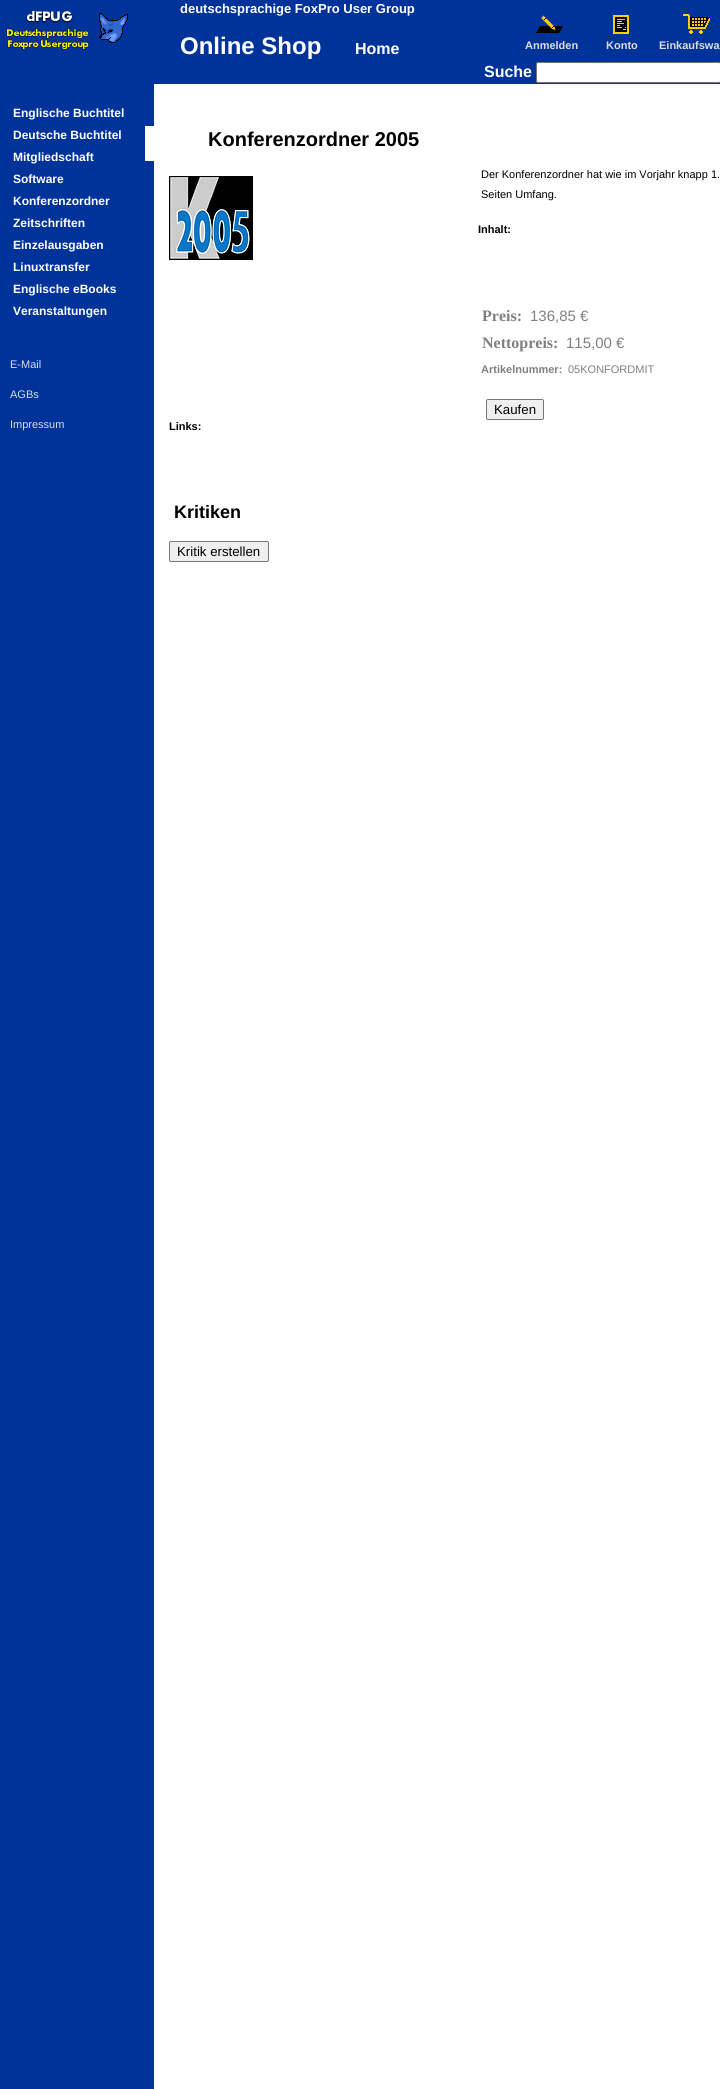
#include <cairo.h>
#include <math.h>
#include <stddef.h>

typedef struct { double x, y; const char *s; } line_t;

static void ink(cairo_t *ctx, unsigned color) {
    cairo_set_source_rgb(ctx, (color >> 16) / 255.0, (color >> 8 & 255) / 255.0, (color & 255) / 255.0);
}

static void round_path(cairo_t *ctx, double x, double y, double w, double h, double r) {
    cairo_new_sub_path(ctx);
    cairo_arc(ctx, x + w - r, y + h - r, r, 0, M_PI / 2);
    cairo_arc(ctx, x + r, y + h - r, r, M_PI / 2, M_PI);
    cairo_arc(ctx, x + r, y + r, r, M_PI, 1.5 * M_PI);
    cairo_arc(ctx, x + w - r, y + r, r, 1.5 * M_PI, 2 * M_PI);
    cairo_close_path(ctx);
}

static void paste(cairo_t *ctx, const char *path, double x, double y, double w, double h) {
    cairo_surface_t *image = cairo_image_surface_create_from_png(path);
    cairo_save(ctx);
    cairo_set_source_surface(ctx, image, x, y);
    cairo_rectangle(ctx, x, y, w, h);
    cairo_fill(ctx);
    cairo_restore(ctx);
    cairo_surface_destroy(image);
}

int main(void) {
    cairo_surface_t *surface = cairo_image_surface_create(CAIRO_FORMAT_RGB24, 720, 2089);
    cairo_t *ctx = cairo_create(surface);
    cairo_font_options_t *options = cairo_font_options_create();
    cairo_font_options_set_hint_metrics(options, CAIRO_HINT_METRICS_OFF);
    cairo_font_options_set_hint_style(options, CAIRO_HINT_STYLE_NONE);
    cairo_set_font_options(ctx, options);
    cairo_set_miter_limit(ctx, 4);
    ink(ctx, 0xFFFFFF);
    cairo_paint(ctx);
    ink(ctx, 0x003399);
    cairo_rectangle(ctx, 0, 0, 154, 2089);
    cairo_fill(ctx);
    cairo_rectangle(ctx, 154, 0, 566, 84);
    cairo_fill(ctx);
    paste(ctx, "media/1.png", 6, 11, 122, 39);
    cairo_select_font_face(ctx, "Liberation Sans", CAIRO_FONT_SLANT_NORMAL, CAIRO_FONT_WEIGHT_BOLD);
    cairo_set_font_size(ctx, 13);
    ink(ctx, 0xFFFFFF);
    cairo_move_to(ctx, 180, 13);
    cairo_show_text(ctx, "deutschsprachige FoxPro User Group");
    cairo_set_font_size(ctx, 24);
    cairo_move_to(ctx, 180, 54);
    cairo_show_text(ctx, "Online Shop");
    cairo_set_font_size(ctx, 16);
    cairo_move_to(ctx, 355, 54);
    cairo_show_text(ctx, "Home");
    paste(ctx, "media/2.png", 536, 15, 27, 18);
    cairo_set_font_size(ctx, 11);
    ink(ctx, 0xDDDDDD);
    cairo_move_to(ctx, 525, 49);
    cairo_show_text(ctx, "Anmelden");
    paste(ctx, "media/3.png", 613, 15, 16, 19);
    cairo_move_to(ctx, 606, 49);
    cairo_show_text(ctx, "Konto");
    paste(ctx, "media/4.png", 683, 14, 27, 20);
    cairo_move_to(ctx, 659, 49);
    cairo_show_text(ctx, "Einkaufswa");
    cairo_set_font_size(ctx, 16);
    ink(ctx, 0xFFFFFF);
    cairo_move_to(ctx, 484, 77);
    cairo_show_text(ctx, "Suche");
    round_path(ctx, 536.5, 62.5, 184, 20, 1.5);
    cairo_fill_preserve(ctx);
    ink(ctx, 0x767676);
    cairo_set_line_width(ctx, 1);
    cairo_stroke(ctx);
    cairo_set_font_size(ctx, 12);
    ink(ctx, 0xFFFFFF);
    {
        static const line_t items[] = {
            {13, 117, "Englische Buchtitel"},
            {13, 139, "Deutsche Buchtitel"},
            {13, 161, "Mitgliedschaft"},
            {13, 183, "Software"},
            {13, 205, "Konferenzordner"},
            {13, 227, "Zeitschriften"},
            {13, 249, "Einzelausgaben"},
            {13, 271, "Linuxtransfer"},
            {13, 293, "Englische eBooks"},
            {13, 315, "Veranstaltungen"},
        };
        for (size_t i = 0; i < sizeof items / sizeof *items; i++) {
            cairo_move_to(ctx, items[i].x, items[i].y);
            cairo_show_text(ctx, items[i].s);
        }
    }
    cairo_select_font_face(ctx, "Liberation Sans", CAIRO_FONT_SLANT_NORMAL, CAIRO_FONT_WEIGHT_NORMAL);
    cairo_set_font_size(ctx, 11);
    ink(ctx, 0xDDDDDD);
    {
        static const line_t items[] = {
            {10, 368, "E-Mail"},
            {10, 398, "AGBs"},
            {10, 428, "Impressum"},
        };
        for (size_t i = 0; i < sizeof items / sizeof *items; i++) {
            cairo_move_to(ctx, items[i].x, items[i].y);
            cairo_show_text(ctx, items[i].s);
        }
    }
    ink(ctx, 0xFFFFFF);
    cairo_rectangle(ctx, 145, 126, 9, 35);
    cairo_fill(ctx);
    cairo_select_font_face(ctx, "Liberation Sans", CAIRO_FONT_SLANT_NORMAL, CAIRO_FONT_WEIGHT_BOLD);
    cairo_set_font_size(ctx, 20);
    ink(ctx, 0x000000);
    cairo_move_to(ctx, 208, 146);
    cairo_show_text(ctx, "Konferenzordner 2005");
    paste(ctx, "media/5.png", 169, 176, 84, 84);
    cairo_select_font_face(ctx, "Liberation Sans", CAIRO_FONT_SLANT_NORMAL, CAIRO_FONT_WEIGHT_NORMAL);
    cairo_set_font_size(ctx, 11);
    cairo_move_to(ctx, 481, 178);
    cairo_show_text(ctx, "Der Konferenzordner hat wie im Vorjahr knapp 1.");
    cairo_move_to(ctx, 481, 198);
    cairo_show_text(ctx, "Seiten Umfang.");
    cairo_select_font_face(ctx, "Liberation Sans", CAIRO_FONT_SLANT_NORMAL, CAIRO_FONT_WEIGHT_BOLD);
    cairo_move_to(ctx, 478, 233);
    cairo_show_text(ctx, "Inhalt:");
    cairo_select_font_face(ctx, "Liberation Serif", CAIRO_FONT_SLANT_NORMAL, CAIRO_FONT_WEIGHT_BOLD);
    cairo_set_font_size(ctx, 16);
    ink(ctx, 0x808080);
    cairo_move_to(ctx, 482, 321);
    cairo_show_text(ctx, "Preis:");
    cairo_select_font_face(ctx, "Liberation Sans", CAIRO_FONT_SLANT_NORMAL, CAIRO_FONT_WEIGHT_NORMAL);
    cairo_set_font_size(ctx, 15);
    cairo_move_to(ctx, 530, 321);
    cairo_show_text(ctx, "136,85 €");
    cairo_select_font_face(ctx, "Liberation Serif", CAIRO_FONT_SLANT_NORMAL, CAIRO_FONT_WEIGHT_BOLD);
    cairo_set_font_size(ctx, 16);
    cairo_move_to(ctx, 482, 348);
    cairo_show_text(ctx, "Nettopreis:");
    cairo_select_font_face(ctx, "Liberation Sans", CAIRO_FONT_SLANT_NORMAL, CAIRO_FONT_WEIGHT_NORMAL);
    cairo_set_font_size(ctx, 15);
    cairo_move_to(ctx, 566, 348);
    cairo_show_text(ctx, "115,00 €");
    cairo_select_font_face(ctx, "Liberation Sans", CAIRO_FONT_SLANT_NORMAL, CAIRO_FONT_WEIGHT_BOLD);
    cairo_set_font_size(ctx, 11);
    cairo_move_to(ctx, 481, 373);
    cairo_show_text(ctx, "Artikelnummer:");
    cairo_select_font_face(ctx, "Liberation Sans", CAIRO_FONT_SLANT_NORMAL, CAIRO_FONT_WEIGHT_NORMAL);
    cairo_move_to(ctx, 568, 373);
    cairo_show_text(ctx, "05KONFORDMIT");
    ink(ctx, 0xEFEFEF);
    round_path(ctx, 486.5, 399.5, 57, 20, 1.5);
    cairo_fill_preserve(ctx);
    ink(ctx, 0x767676);
    cairo_stroke(ctx);
    cairo_set_font_size(ctx, 13.25);
    ink(ctx, 0x000000);
    cairo_move_to(ctx, 494, 414);
    cairo_show_text(ctx, "Kaufen");
    cairo_select_font_face(ctx, "Liberation Sans", CAIRO_FONT_SLANT_NORMAL, CAIRO_FONT_WEIGHT_BOLD);
    cairo_set_font_size(ctx, 11);
    cairo_move_to(ctx, 169, 430);
    cairo_show_text(ctx, "Links:");
    cairo_set_font_size(ctx, 18);
    cairo_move_to(ctx, 174, 518);
    cairo_show_text(ctx, "Kritiken");
    ink(ctx, 0xEFEFEF);
    round_path(ctx, 169.5, 541.5, 99, 20, 1.5);
    cairo_fill_preserve(ctx);
    ink(ctx, 0x767676);
    cairo_stroke(ctx);
    cairo_select_font_face(ctx, "Liberation Sans", CAIRO_FONT_SLANT_NORMAL, CAIRO_FONT_WEIGHT_NORMAL);
    cairo_set_font_size(ctx, 13.25);
    ink(ctx, 0x000000);
    cairo_move_to(ctx, 177, 556);
    cairo_show_text(ctx, "Kritik erstellen");
    cairo_surface_write_to_png(surface, "image.png");
    cairo_font_options_destroy(options);
    cairo_destroy(ctx);
    cairo_surface_destroy(surface);
    return 0;
}
